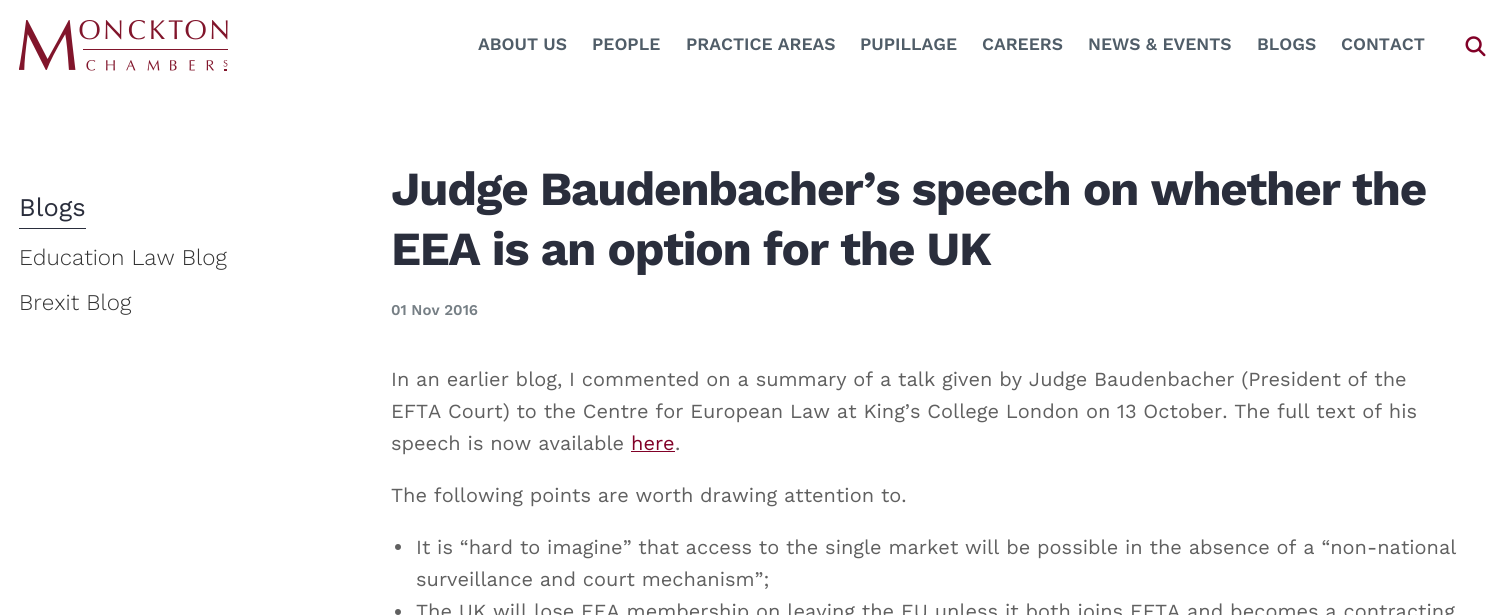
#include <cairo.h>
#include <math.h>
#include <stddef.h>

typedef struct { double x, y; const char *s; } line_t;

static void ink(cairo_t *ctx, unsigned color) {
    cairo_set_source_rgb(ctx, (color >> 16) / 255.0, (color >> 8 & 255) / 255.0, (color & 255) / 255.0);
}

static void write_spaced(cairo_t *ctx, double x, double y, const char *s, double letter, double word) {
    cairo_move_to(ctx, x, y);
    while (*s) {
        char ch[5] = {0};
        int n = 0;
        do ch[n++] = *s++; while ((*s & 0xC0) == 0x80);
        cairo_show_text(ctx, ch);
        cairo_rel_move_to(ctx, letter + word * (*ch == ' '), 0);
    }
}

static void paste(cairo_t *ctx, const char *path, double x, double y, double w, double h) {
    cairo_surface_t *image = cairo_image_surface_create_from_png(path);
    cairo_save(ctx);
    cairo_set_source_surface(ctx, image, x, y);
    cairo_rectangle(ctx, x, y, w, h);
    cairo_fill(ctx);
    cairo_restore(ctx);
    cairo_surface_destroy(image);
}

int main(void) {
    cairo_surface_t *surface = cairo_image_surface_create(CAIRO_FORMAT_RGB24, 1490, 615);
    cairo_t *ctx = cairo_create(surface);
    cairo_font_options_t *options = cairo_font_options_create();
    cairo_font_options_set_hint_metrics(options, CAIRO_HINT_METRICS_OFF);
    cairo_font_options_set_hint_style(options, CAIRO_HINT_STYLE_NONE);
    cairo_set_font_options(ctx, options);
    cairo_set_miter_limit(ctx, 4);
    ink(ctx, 0xFFFFFF);
    cairo_paint(ctx);
    paste(ctx, "media/1.png", 19, 20, 209, 51);
    cairo_select_font_face(ctx, "Work Sans SemiBold", CAIRO_FONT_SLANT_NORMAL, CAIRO_FONT_WEIGHT_NORMAL);
    cairo_set_font_size(ctx, 17.5);
    ink(ctx, 0x505D68);
    {
        static const line_t items[] = {
            {478, 50, "ABOUT US"},
            {592, 50, "PEOPLE"},
            {686, 50, "PRACTICE AREAS"},
            {860, 50, "PUPILLAGE"},
            {982, 50, "CAREERS"},
            {1088, 50, "NEWS & EVENTS"},
            {1257, 50, "BLOGS"},
            {1341, 50, "CONTACT"},
        };
        for (size_t i = 0; i < sizeof items / sizeof *items; i++) {
            cairo_move_to(ctx, items[i].x, items[i].y);
            cairo_show_text(ctx, items[i].s);
        }
    }
    paste(ctx, "media/2.png", 1465, 36, 21, 21);
    cairo_select_font_face(ctx, "Work Sans", CAIRO_FONT_SLANT_NORMAL, CAIRO_FONT_WEIGHT_NORMAL);
    cairo_set_font_size(ctx, 25.5);
    ink(ctx, 0x2A2E3C);
    cairo_move_to(ctx, 19, 216);
    cairo_show_text(ctx, "Blogs");
    cairo_rectangle(ctx, 19, 228, 67, 1);
    cairo_fill(ctx);
    cairo_select_font_face(ctx, "Work Sans Light", CAIRO_FONT_SLANT_NORMAL, CAIRO_FONT_WEIGHT_NORMAL);
    cairo_set_font_size(ctx, 22.5);
    ink(ctx, 0x333333);
    cairo_move_to(ctx, 19, 265);
    cairo_show_text(ctx, "Education Law Blog");
    cairo_move_to(ctx, 19, 310);
    cairo_show_text(ctx, "Brexit Blog");
    cairo_select_font_face(ctx, "Work Sans", CAIRO_FONT_SLANT_NORMAL, CAIRO_FONT_WEIGHT_BOLD);
    cairo_set_font_size(ctx, 47.5);
    ink(ctx, 0x2A2E3C);
    write_spaced(ctx, 391, 205, "Judge Baudenbacher’s speech on whether the", -1.25, 0);
    write_spaced(ctx, 391, 265, "EEA is an option for the UK", -1.25, 0);
    cairo_select_font_face(ctx, "Work Sans SemiBold", CAIRO_FONT_SLANT_NORMAL, CAIRO_FONT_WEIGHT_NORMAL);
    cairo_set_font_size(ctx, 15);
    ink(ctx, 0x767F85);
    cairo_move_to(ctx, 391, 315);
    cairo_show_text(ctx, "01 Nov 2016");
    cairo_select_font_face(ctx, "Work Sans", CAIRO_FONT_SLANT_NORMAL, CAIRO_FONT_WEIGHT_NORMAL);
    cairo_set_font_size(ctx, 20);
    ink(ctx, 0x606060);
    {
        static const line_t items[] = {
            {391, 386, "In an earlier blog, I commented on a summary of a talk given by Judge Baudenbacher (President of the"},
            {391, 418, "EFTA Court) to the Centre for European Law at King’s College London on 13 October. The full text of his"},
            {391, 450, "speech is now available"},
        };
        for (size_t i = 0; i < sizeof items / sizeof *items; i++) {
            cairo_move_to(ctx, items[i].x, items[i].y);
            cairo_show_text(ctx, items[i].s);
        }
    }
    ink(ctx, 0x810027);
    cairo_move_to(ctx, 631, 450);
    cairo_show_text(ctx, "here");
    cairo_rectangle(ctx, 631, 451, 44, 1);
    cairo_fill(ctx);
    ink(ctx, 0x606060);
    cairo_move_to(ctx, 675, 450);
    cairo_show_text(ctx, ".");
    cairo_move_to(ctx, 391, 502);
    cairo_show_text(ctx, "The following points are worth drawing attention to.");
    cairo_new_path(ctx);
    cairo_arc(ctx, 398, 547, 3, 0, 2 * M_PI);
    cairo_fill(ctx);
    cairo_move_to(ctx, 416, 554);
    cairo_show_text(ctx, "It is “hard to imagine” that access to the single market will be possible in the absence of a “non-national");
    cairo_move_to(ctx, 416, 586);
    cairo_show_text(ctx, "surveillance and court mechanism”;");
    cairo_new_path(ctx);
    cairo_arc(ctx, 398, 612, 3, 0, 2 * M_PI);
    cairo_fill(ctx);
    cairo_move_to(ctx, 416, 618);
    cairo_show_text(ctx, "The UK will lose EEA membership on leaving the EU unless it both joins EFTA and becomes a contracting");
    cairo_surface_write_to_png(surface, "image.png");
    cairo_font_options_destroy(options);
    cairo_destroy(ctx);
    cairo_surface_destroy(surface);
    return 0;
}
